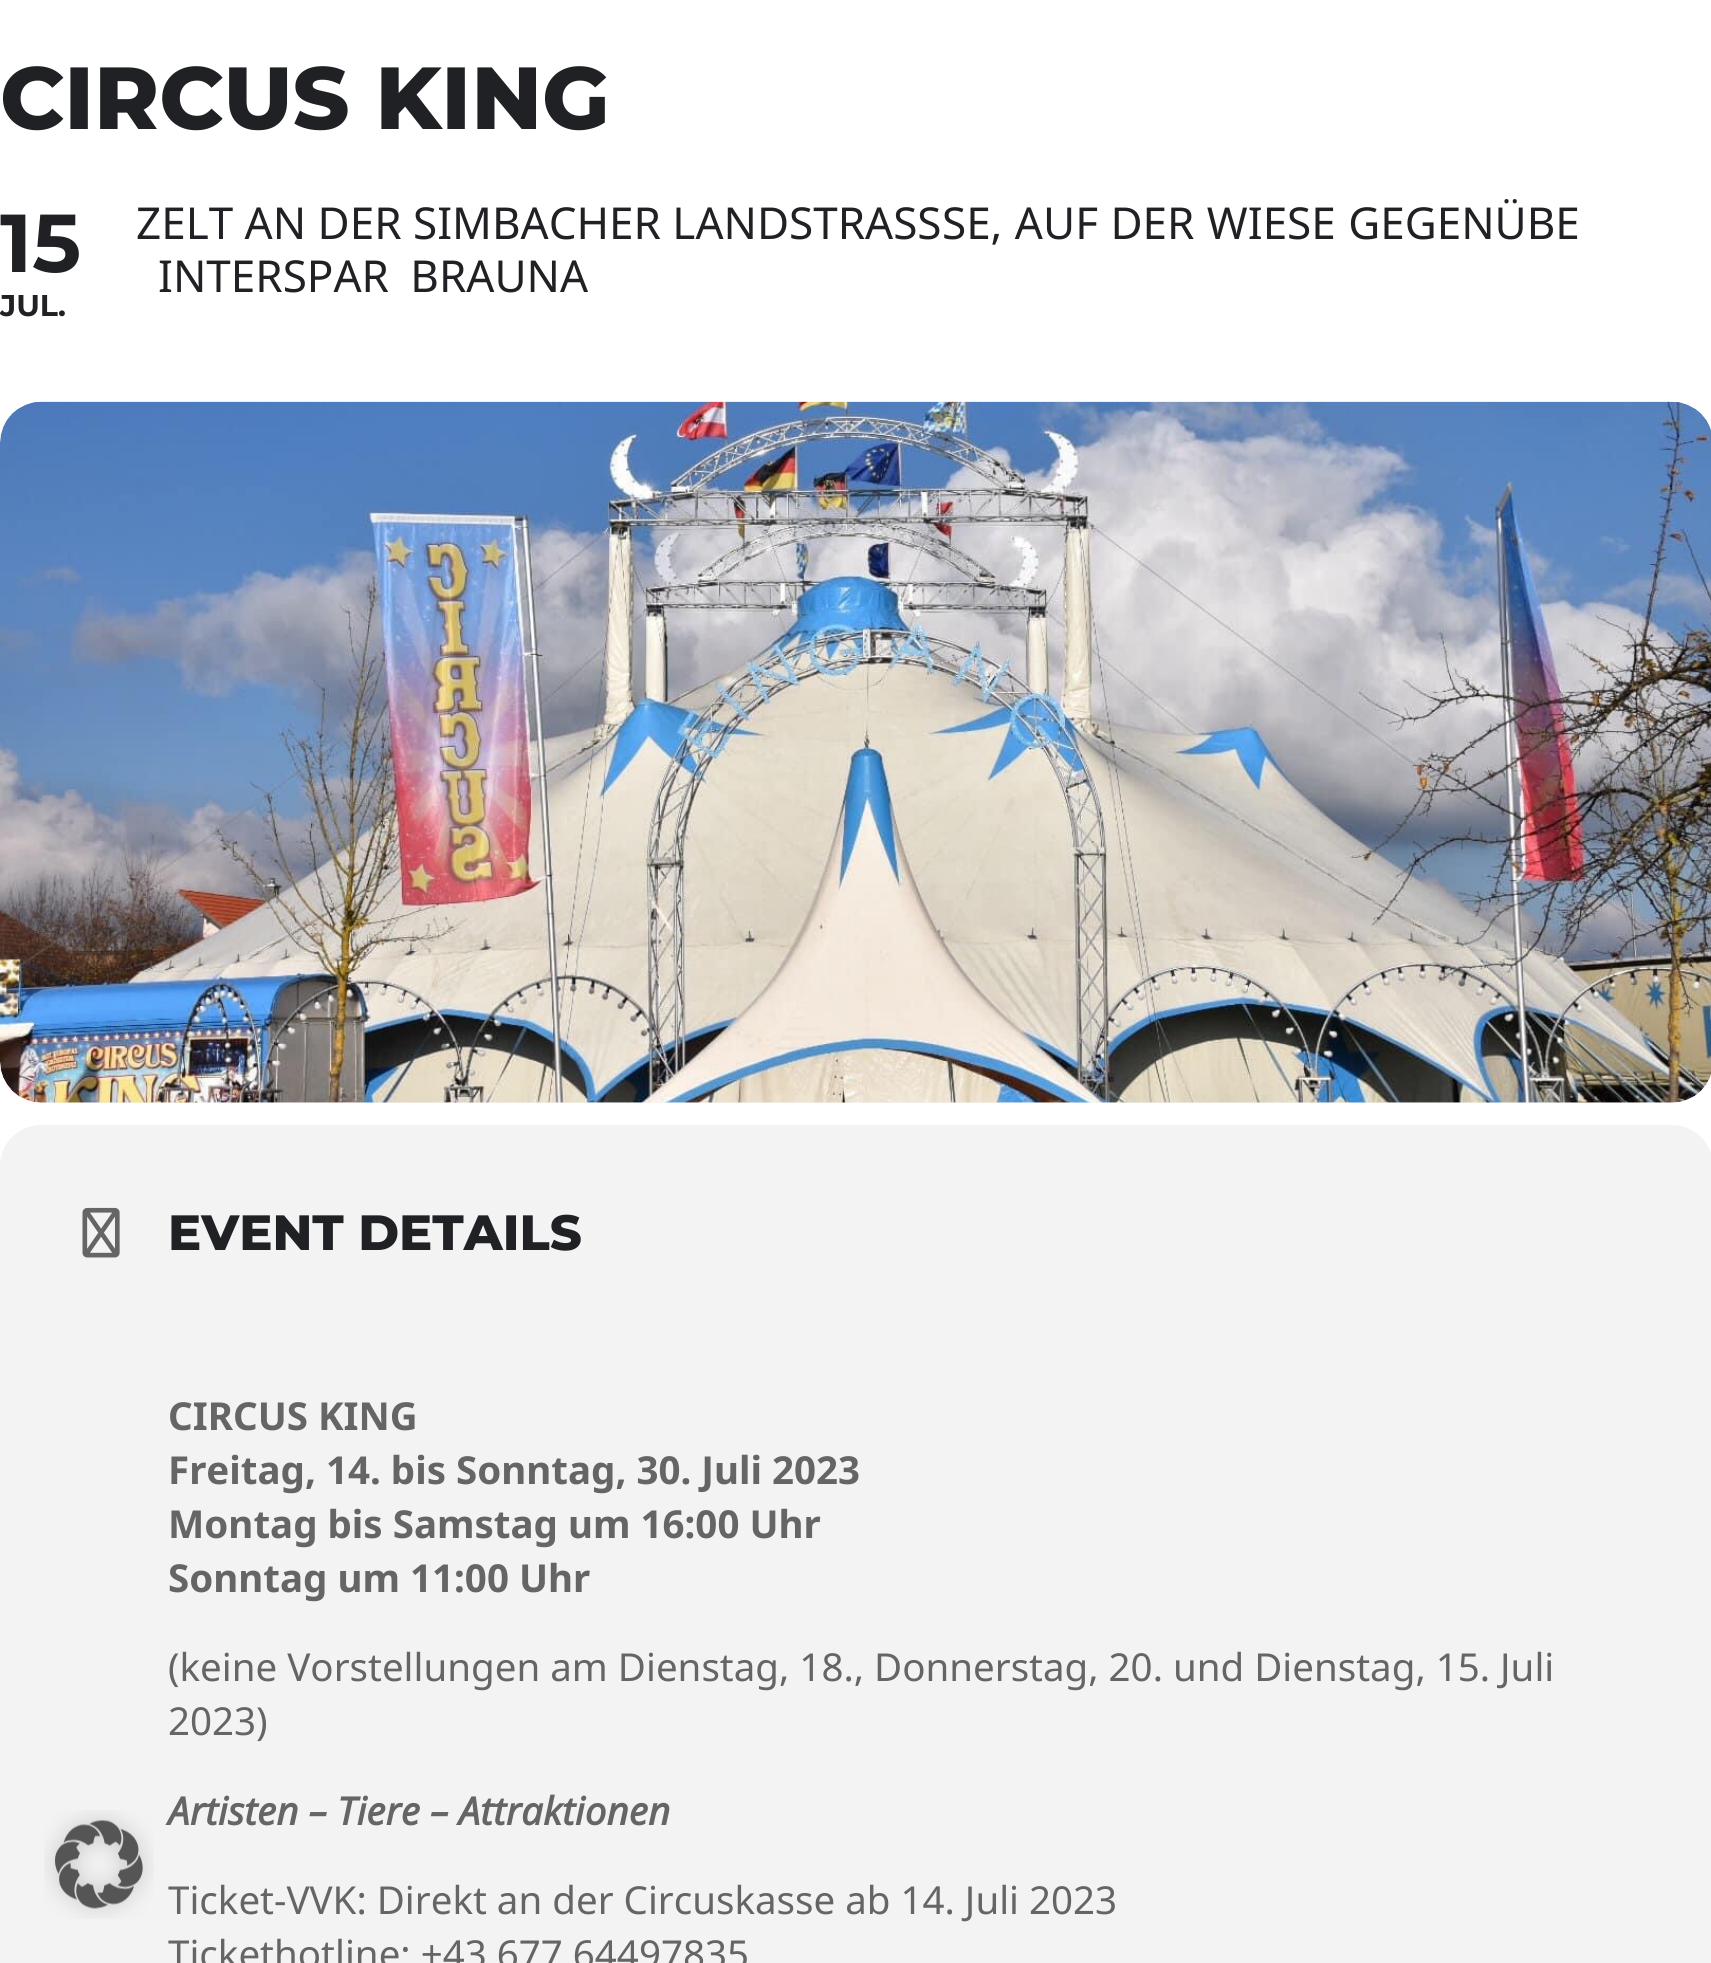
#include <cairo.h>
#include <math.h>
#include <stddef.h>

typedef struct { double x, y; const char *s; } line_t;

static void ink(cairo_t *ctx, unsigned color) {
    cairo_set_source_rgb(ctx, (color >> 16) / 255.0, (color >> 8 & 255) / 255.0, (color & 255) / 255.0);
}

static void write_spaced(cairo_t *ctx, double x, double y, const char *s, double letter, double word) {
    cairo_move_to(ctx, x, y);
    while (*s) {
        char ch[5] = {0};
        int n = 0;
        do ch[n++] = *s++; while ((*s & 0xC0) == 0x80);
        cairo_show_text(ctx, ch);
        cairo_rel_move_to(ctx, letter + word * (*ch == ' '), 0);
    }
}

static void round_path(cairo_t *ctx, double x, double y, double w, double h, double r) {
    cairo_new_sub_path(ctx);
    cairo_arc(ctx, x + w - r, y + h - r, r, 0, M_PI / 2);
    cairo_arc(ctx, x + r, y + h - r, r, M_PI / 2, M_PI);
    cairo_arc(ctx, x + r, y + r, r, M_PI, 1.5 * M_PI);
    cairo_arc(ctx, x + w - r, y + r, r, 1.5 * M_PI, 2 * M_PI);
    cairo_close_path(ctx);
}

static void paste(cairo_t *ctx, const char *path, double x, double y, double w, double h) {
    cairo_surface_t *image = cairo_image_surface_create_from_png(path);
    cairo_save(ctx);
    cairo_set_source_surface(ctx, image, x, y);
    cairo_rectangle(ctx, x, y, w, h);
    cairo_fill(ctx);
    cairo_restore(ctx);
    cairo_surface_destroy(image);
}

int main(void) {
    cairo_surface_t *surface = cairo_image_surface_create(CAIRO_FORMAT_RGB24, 1711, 1963);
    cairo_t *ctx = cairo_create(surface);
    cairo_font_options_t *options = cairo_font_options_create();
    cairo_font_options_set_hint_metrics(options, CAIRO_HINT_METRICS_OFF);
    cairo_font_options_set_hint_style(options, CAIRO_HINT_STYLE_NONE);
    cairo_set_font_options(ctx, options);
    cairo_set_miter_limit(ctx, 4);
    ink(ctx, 0xFFFFFF);
    cairo_paint(ctx);
    cairo_select_font_face(ctx, "Montserrat ExtraBold", CAIRO_FONT_SLANT_NORMAL, CAIRO_FONT_WEIGHT_NORMAL);
    cairo_set_font_size(ctx, 88);
    ink(ctx, 0x202124);
    cairo_move_to(ctx, 0, 129);
    cairo_show_text(ctx, "CIRCUS KING");
    cairo_select_font_face(ctx, "Montserrat", CAIRO_FONT_SLANT_NORMAL, CAIRO_FONT_WEIGHT_BOLD);
    cairo_set_font_size(ctx, 82);
    cairo_move_to(ctx, 0, 272);
    cairo_show_text(ctx, "15");
    cairo_set_font_size(ctx, 30);
    cairo_move_to(ctx, 0, 316);
    cairo_show_text(ctx, "JUL.");
    cairo_select_font_face(ctx, "Noto Sans", CAIRO_FONT_SLANT_NORMAL, CAIRO_FONT_WEIGHT_NORMAL);
    cairo_set_font_size(ctx, 44);
    cairo_move_to(ctx, 136, 239);
    cairo_show_text(ctx, "ZELT AN DER SIMBACHER LANDSTRASS");
    write_spaced(ctx, 942, 239, "SE, AUF DER WIESE GEGENÜBE", 0, 1);
    write_spaced(ctx, 158, 292, "INTERSPAR BRAUNA", 0, 10);
    ink(ctx, 0xF3F3F3);
    round_path(ctx, 0, 402, 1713, 701, 41);
    cairo_fill(ctx);
    paste(ctx, "media/1.png", 0, 401, 1711, 702);
    round_path(ctx, 0, 1125, 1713, 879, 41);
    cairo_fill(ctx);
    paste(ctx, "media/2.png", 82, 1207, 38, 51);
    cairo_select_font_face(ctx, "Montserrat ExtraBold", CAIRO_FONT_SLANT_NORMAL, CAIRO_FONT_WEIGHT_NORMAL);
    cairo_set_font_size(ctx, 49.5);
    ink(ctx, 0x202124);
    cairo_move_to(ctx, 168, 1250);
    cairo_show_text(ctx, "EVENT DETAILS");
    cairo_select_font_face(ctx, "Noto Sans", CAIRO_FONT_SLANT_NORMAL, CAIRO_FONT_WEIGHT_BOLD);
    cairo_set_font_size(ctx, 38.5);
    ink(ctx, 0x656565);
    {
        static const line_t items[] = {
            {168, 1430, "CIRCUS KING"},
            {168, 1484, "Freitag, 14. bis Sonntag, 30. Juli 2023"},
            {168, 1538, "Montag bis Samstag um 16:00 Uhr"},
            {168, 1592, "Sonntag um 11:00 Uhr"},
        };
        for (size_t i = 0; i < sizeof items / sizeof *items; i++) {
            cairo_move_to(ctx, items[i].x, items[i].y);
            cairo_show_text(ctx, items[i].s);
        }
    }
    cairo_select_font_face(ctx, "Noto Sans", CAIRO_FONT_SLANT_NORMAL, CAIRO_FONT_WEIGHT_NORMAL);
    cairo_move_to(ctx, 168, 1681);
    cairo_show_text(ctx, "(keine Vorstellungen am Dienstag, 18., Donnerstag, 20. und Dienstag, 15. Juli");
    cairo_move_to(ctx, 168, 1735);
    cairo_show_text(ctx, "2023)");
    cairo_select_font_face(ctx, "Noto Sans", CAIRO_FONT_SLANT_ITALIC, CAIRO_FONT_WEIGHT_BOLD);
    cairo_move_to(ctx, 168, 1825);
    cairo_show_text(ctx, "Artisten – Tiere – Attraktionen");
    cairo_select_font_face(ctx, "Noto Sans", CAIRO_FONT_SLANT_NORMAL, CAIRO_FONT_WEIGHT_NORMAL);
    cairo_move_to(ctx, 168, 1914);
    cairo_show_text(ctx, "Ticket-VVK: Direkt an der Circuskasse ab 14. Juli 2023");
    cairo_move_to(ctx, 168, 1968);
    cairo_show_text(ctx, "Tickethotline: +43 677 64497835");
    paste(ctx, "media/3.png", 44, 1810, 110, 109);
    cairo_surface_write_to_png(surface, "image.png");
    cairo_font_options_destroy(options);
    cairo_destroy(ctx);
    cairo_surface_destroy(surface);
    return 0;
}
